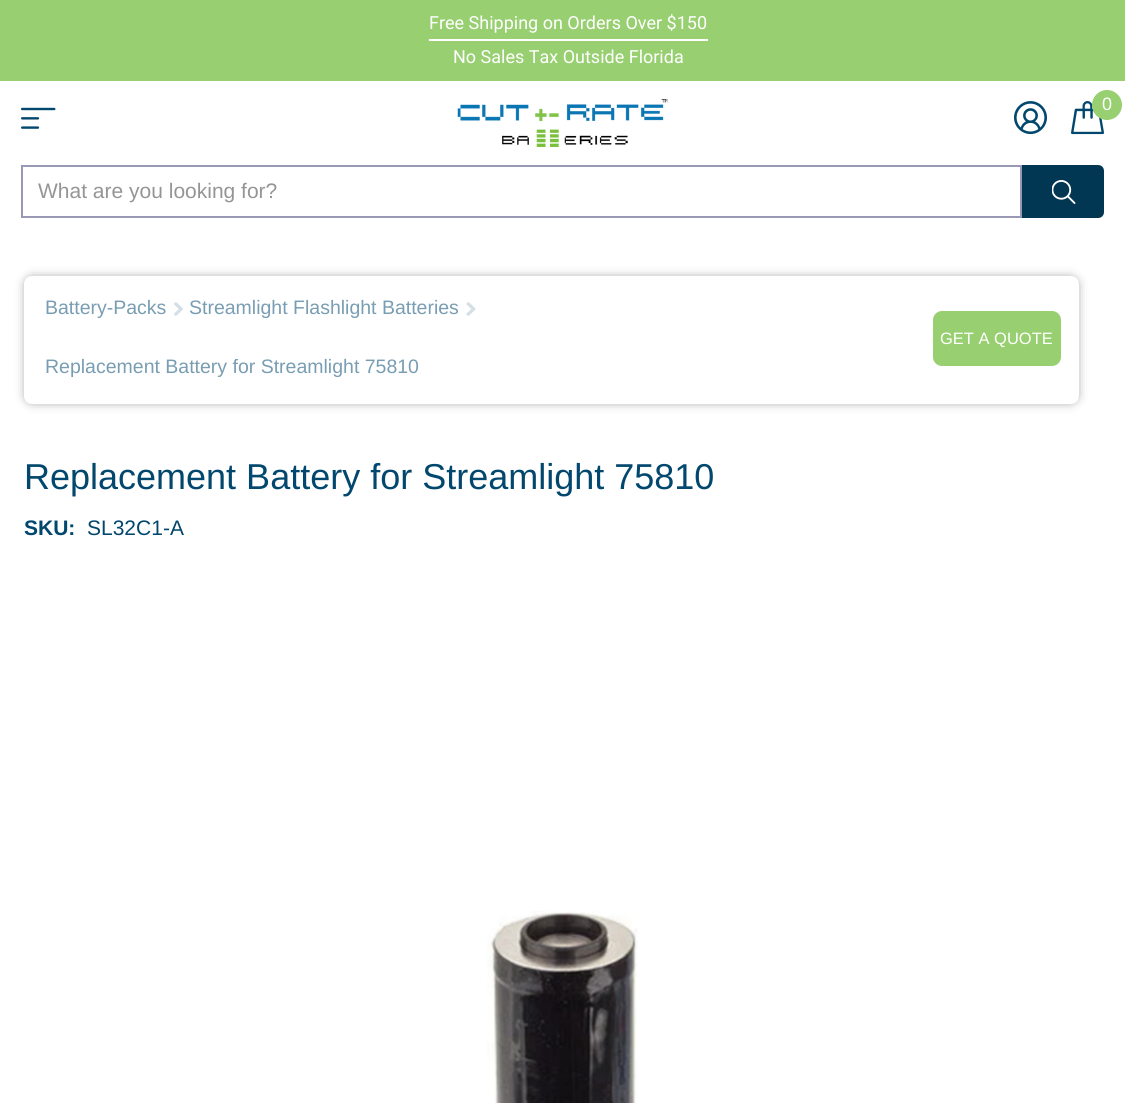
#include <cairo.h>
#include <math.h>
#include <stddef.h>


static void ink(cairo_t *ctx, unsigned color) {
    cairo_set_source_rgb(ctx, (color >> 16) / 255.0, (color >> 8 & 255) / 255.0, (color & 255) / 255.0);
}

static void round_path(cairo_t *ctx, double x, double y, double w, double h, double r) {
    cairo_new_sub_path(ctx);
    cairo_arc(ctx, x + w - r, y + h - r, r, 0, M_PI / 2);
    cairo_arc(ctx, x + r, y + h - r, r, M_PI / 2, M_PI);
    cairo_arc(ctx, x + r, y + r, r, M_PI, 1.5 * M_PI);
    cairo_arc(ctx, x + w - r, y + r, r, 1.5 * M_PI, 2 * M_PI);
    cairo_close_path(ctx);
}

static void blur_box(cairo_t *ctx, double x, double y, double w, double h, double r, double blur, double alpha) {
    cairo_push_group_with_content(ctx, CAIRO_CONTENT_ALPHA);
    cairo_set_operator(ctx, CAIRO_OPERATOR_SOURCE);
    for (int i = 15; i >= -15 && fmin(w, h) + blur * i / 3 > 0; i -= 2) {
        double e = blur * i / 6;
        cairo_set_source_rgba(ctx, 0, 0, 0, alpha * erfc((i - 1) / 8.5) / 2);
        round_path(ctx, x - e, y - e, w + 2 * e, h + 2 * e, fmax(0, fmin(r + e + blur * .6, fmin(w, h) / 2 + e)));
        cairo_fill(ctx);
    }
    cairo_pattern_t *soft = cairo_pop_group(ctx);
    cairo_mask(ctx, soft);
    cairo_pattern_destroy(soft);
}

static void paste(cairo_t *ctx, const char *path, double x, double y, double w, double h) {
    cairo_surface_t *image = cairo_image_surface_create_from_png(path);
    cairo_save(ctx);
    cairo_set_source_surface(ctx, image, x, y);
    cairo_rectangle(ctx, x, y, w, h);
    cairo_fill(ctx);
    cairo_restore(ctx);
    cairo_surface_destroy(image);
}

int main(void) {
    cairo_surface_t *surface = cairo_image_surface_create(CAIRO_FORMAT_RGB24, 1125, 1103);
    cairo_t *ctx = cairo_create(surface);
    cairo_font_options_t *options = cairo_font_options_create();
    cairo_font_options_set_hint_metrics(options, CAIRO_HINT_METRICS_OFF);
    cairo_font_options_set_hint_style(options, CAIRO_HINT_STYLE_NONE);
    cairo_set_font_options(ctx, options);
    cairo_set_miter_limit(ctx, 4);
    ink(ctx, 0xFFFFFF);
    cairo_paint(ctx);
    ink(ctx, 0x98CF71);
    cairo_rectangle(ctx, 0, 0, 1125, 81);
    cairo_fill(ctx);
    ink(ctx, 0xFFFFFF);
    cairo_rectangle(ctx, 429, 39, 279, 2);
    cairo_fill(ctx);
    cairo_select_font_face(ctx, "Roboto", CAIRO_FONT_SLANT_NORMAL, CAIRO_FONT_WEIGHT_NORMAL);
    cairo_set_font_size(ctx, 18);
    cairo_move_to(ctx, 429, 29);
    cairo_show_text(ctx, "Free Shipping on Orders Over $150");
    cairo_move_to(ctx, 453, 63);
    cairo_show_text(ctx, "No Sales Tax Outside Florida");
    paste(ctx, "media/1.png", 21, 107, 35, 22);
    paste(ctx, "media/2.png", 457, 99, 211, 48);
    paste(ctx, "media/3.png", 1014, 101, 33, 34);
    paste(ctx, "media/4.png", 1071, 101, 33, 34);
    ink(ctx, 0x98CF71);
    cairo_arc(ctx, 1107, 105, 15, 0, 2 * M_PI);
    cairo_fill(ctx);
    cairo_select_font_face(ctx, "Liberation Sans", CAIRO_FONT_SLANT_NORMAL, CAIRO_FONT_WEIGHT_NORMAL);
    ink(ctx, 0xFFFFFF);
    cairo_move_to(ctx, 1102, 110);
    cairo_show_text(ctx, "0");
    cairo_rectangle(ctx, 22, 166, 999, 51);
    ink(ctx, 0x9998B5);
    cairo_stroke(ctx);
    cairo_set_font_size(ctx, 21);
    ink(ctx, 0x959595);
    cairo_move_to(ctx, 38, 198);
    cairo_show_text(ctx, "What are you looking for?");
    ink(ctx, 0x023754);
    cairo_new_path(ctx);
    cairo_move_to(ctx, 1022, 165);
    cairo_line_to(ctx, 1098, 165);
    cairo_curve_to(ctx, 1101.5, 165, 1104, 167.5, 1104, 171);
    cairo_line_to(ctx, 1104, 212);
    cairo_curve_to(ctx, 1104, 215.5, 1101.5, 218, 1098, 218);
    cairo_line_to(ctx, 1022, 218);
    cairo_close_path(ctx);
    cairo_fill(ctx);
    paste(ctx, "media/5.png", 1052, 180, 24, 24);
    ink(ctx, 0x333333);
    blur_box(ctx, 29, 281, 1045, 118, 3, 6, 1);
    ink(ctx, 0xFFFFFF);
    round_path(ctx, 24, 276, 1055, 128, 8);
    cairo_fill(ctx);
    cairo_set_font_size(ctx, 19.5);
    ink(ctx, 0x799DB2);
    cairo_move_to(ctx, 45, 314);
    cairo_show_text(ctx, "Battery-Packs");
    paste(ctx, "media/6.png", 174, 302, 9, 14);
    cairo_move_to(ctx, 189, 314);
    cairo_show_text(ctx, "Streamlight Flashlight Batteries");
    paste(ctx, "media/7.png", 466, 302, 10, 14);
    cairo_move_to(ctx, 45, 373);
    cairo_show_text(ctx, "Replacement Battery for Streamlight 75810");
    ink(ctx, 0x98CF71);
    round_path(ctx, 933, 311, 128, 55, 9);
    cairo_fill(ctx);
    cairo_set_font_size(ctx, 16.5);
    ink(ctx, 0xFFFFFF);
    cairo_move_to(ctx, 940, 344);
    cairo_show_text(ctx, "GET A QUOTE");
    cairo_set_font_size(ctx, 36);
    ink(ctx, 0x02476D);
    cairo_move_to(ctx, 24, 489);
    cairo_show_text(ctx, "Replacement Battery for Streamlight 75810");
    cairo_select_font_face(ctx, "Liberation Sans", CAIRO_FONT_SLANT_NORMAL, CAIRO_FONT_WEIGHT_BOLD);
    cairo_set_font_size(ctx, 21);
    cairo_move_to(ctx, 24, 535);
    cairo_show_text(ctx, "SKU:");
    cairo_select_font_face(ctx, "Liberation Sans", CAIRO_FONT_SLANT_NORMAL, CAIRO_FONT_WEIGHT_NORMAL);
    cairo_move_to(ctx, 87, 535);
    cairo_show_text(ctx, "SL32C1-A");
    paste(ctx, "media/8.png", 487, 911, 151, 192);
    cairo_surface_write_to_png(surface, "image.png");
    cairo_font_options_destroy(options);
    cairo_destroy(ctx);
    cairo_surface_destroy(surface);
    return 0;
}
